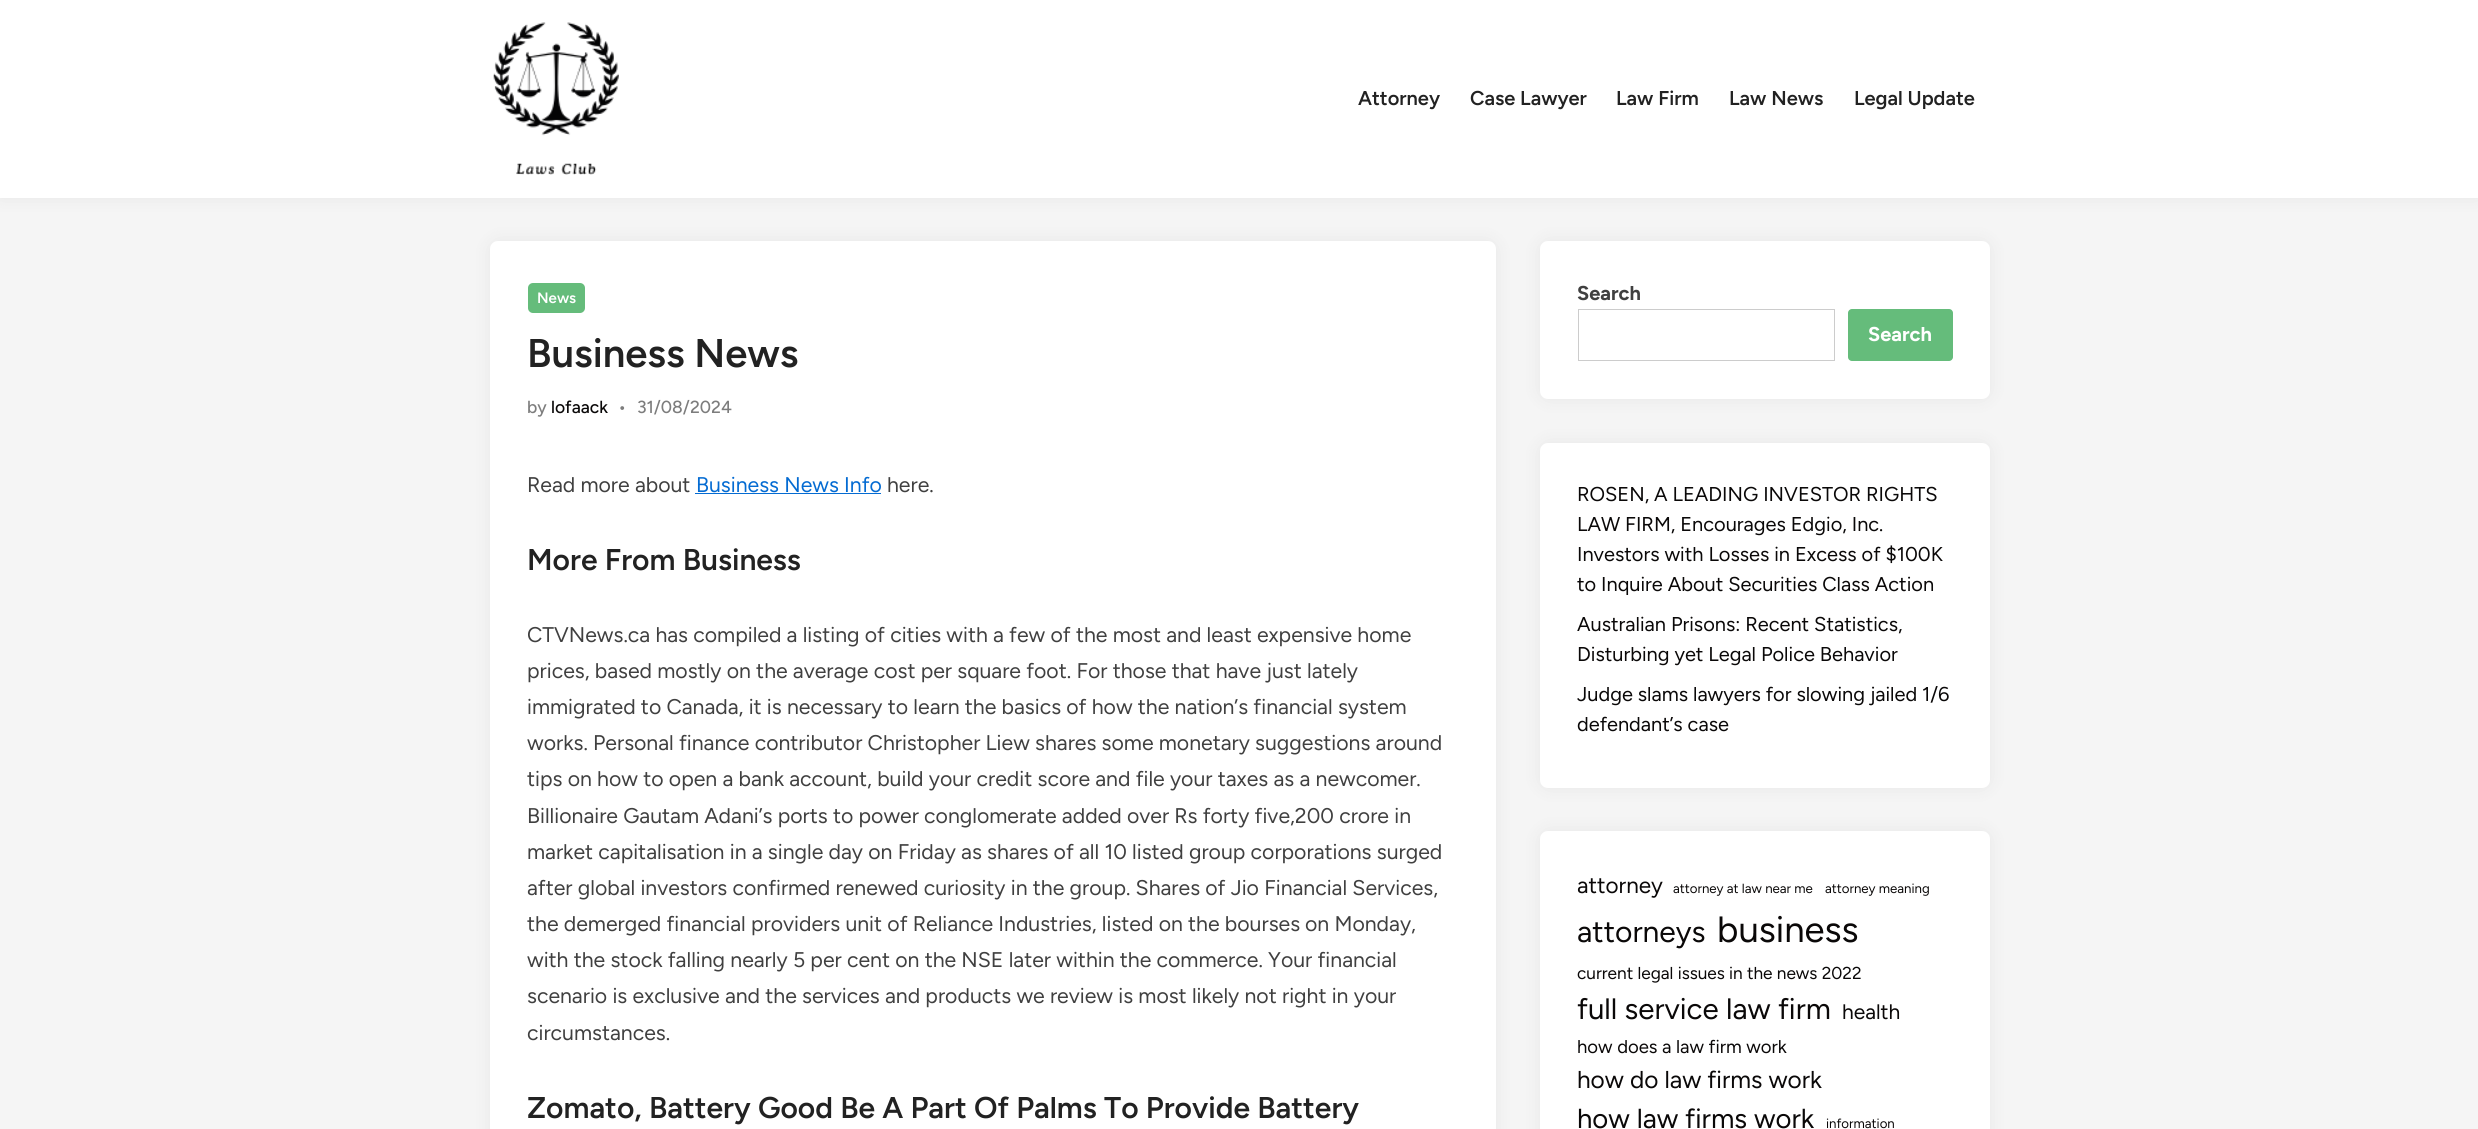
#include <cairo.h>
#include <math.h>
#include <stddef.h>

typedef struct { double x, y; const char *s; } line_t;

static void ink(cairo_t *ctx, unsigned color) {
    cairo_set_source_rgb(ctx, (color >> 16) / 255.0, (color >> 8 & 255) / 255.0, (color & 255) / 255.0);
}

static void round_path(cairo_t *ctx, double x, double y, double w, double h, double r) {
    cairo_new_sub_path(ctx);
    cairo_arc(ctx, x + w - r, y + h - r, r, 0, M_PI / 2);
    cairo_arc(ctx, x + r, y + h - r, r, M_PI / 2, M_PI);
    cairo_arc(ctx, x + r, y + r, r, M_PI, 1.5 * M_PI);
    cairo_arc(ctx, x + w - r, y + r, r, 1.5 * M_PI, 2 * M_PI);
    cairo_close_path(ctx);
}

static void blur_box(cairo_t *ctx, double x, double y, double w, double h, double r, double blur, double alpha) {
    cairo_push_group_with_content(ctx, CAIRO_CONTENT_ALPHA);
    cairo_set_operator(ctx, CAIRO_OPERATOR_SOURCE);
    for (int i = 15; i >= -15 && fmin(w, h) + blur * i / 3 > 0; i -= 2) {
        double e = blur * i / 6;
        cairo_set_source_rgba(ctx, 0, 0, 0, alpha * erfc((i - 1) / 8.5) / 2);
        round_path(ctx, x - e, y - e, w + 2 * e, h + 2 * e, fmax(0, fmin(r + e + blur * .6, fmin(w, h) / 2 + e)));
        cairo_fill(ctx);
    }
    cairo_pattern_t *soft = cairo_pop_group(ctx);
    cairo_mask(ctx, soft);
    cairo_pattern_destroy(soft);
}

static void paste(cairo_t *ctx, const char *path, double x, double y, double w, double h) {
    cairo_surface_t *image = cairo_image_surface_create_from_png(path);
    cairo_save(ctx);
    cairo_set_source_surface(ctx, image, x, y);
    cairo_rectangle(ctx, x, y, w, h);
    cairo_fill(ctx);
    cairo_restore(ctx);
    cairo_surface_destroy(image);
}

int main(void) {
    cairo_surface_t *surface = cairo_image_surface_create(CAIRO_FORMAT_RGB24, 2478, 1129);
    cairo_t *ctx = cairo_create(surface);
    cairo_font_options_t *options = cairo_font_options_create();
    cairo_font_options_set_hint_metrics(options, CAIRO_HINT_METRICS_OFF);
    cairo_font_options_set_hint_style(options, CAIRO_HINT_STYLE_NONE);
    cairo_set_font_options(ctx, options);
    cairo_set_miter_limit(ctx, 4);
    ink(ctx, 0xF5F5F5);
    cairo_paint(ctx);
    ink(ctx, 0x000000);
    blur_box(ctx, 0, 0, 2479, 198, 0, 9.5, 0.06);
    ink(ctx, 0xFFFFFF);
    cairo_rectangle(ctx, 0, 0, 2478, 198);
    cairo_fill(ctx);
    paste(ctx, "media/1.png", 493, 22, 126, 153);
    cairo_select_font_face(ctx, "Figtree SemiBold", CAIRO_FONT_SLANT_NORMAL, CAIRO_FONT_WEIGHT_NORMAL);
    cairo_set_font_size(ctx, 20);
    ink(ctx, 0x222222);
    {
        static const line_t items[] = {
            {1358, 105, "Attorney"},
            {1470, 105, "Case Lawyer"},
            {1616, 105, "Law Firm"},
            {1729, 105, "Law News"},
            {1854, 105, "Legal Update"},
        };
        for (size_t i = 0; i < sizeof items / sizeof *items; i++) {
            cairo_move_to(ctx, items[i].x, items[i].y);
            cairo_show_text(ctx, items[i].s);
        }
    }
    ink(ctx, 0x000000);
    blur_box(ctx, 490, 241, 1006, 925, 8, 9.5, 0.06);
    ink(ctx, 0xFFFFFF);
    round_path(ctx, 490, 241, 1006, 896, 8);
    cairo_fill(ctx);
    ink(ctx, 0x65BC7B);
    round_path(ctx, 528, 283, 57, 30, 5);
    cairo_fill(ctx);
    cairo_set_font_size(ctx, 15);
    ink(ctx, 0xFFFFFF);
    cairo_move_to(ctx, 537, 303);
    cairo_show_text(ctx, "News");
    cairo_set_font_size(ctx, 40);
    ink(ctx, 0x222222);
    cairo_move_to(ctx, 527, 367);
    cairo_show_text(ctx, "Business News");
    cairo_select_font_face(ctx, "Figtree Medium", CAIRO_FONT_SLANT_NORMAL, CAIRO_FONT_WEIGHT_NORMAL);
    cairo_set_font_size(ctx, 17.5);
    ink(ctx, 0x7D7D7D);
    cairo_move_to(ctx, 527, 413);
    cairo_show_text(ctx, "by");
    ink(ctx, 0x0A0808);
    cairo_move_to(ctx, 551, 413);
    cairo_show_text(ctx, "lofaack");
    ink(ctx, 0x7D7D7D);
    cairo_move_to(ctx, 618, 413);
    cairo_show_text(ctx, "•");
    cairo_move_to(ctx, 637, 413);
    cairo_show_text(ctx, "31/08/2024");
    cairo_select_font_face(ctx, "Figtree", CAIRO_FONT_SLANT_NORMAL, CAIRO_FONT_WEIGHT_NORMAL);
    cairo_set_font_size(ctx, 21.25);
    ink(ctx, 0x404040);
    cairo_move_to(ctx, 527, 492);
    cairo_show_text(ctx, "Read more about");
    ink(ctx, 0x046BD2);
    cairo_move_to(ctx, 696, 492);
    cairo_show_text(ctx, "Business News Info");
    cairo_rectangle(ctx, 695, 493, 186, 1);
    cairo_fill(ctx);
    ink(ctx, 0x404040);
    cairo_move_to(ctx, 887, 492);
    cairo_show_text(ctx, "here.");
    cairo_select_font_face(ctx, "Figtree SemiBold", CAIRO_FONT_SLANT_NORMAL, CAIRO_FONT_WEIGHT_NORMAL);
    cairo_set_font_size(ctx, 30);
    ink(ctx, 0x222222);
    cairo_move_to(ctx, 527, 570);
    cairo_show_text(ctx, "More From Business");
    cairo_select_font_face(ctx, "Figtree", CAIRO_FONT_SLANT_NORMAL, CAIRO_FONT_WEIGHT_NORMAL);
    cairo_set_font_size(ctx, 21.25);
    ink(ctx, 0x404040);
    {
        static const line_t items[] = {
            {527, 642, "CTVNews.ca has compiled a listing of cities with a few of the most and least expensive home"},
            {527, 678, "prices, based mostly on the average cost per square foot. For those that have just lately"},
            {527, 714, "immigrated to Canada, it is necessary to learn the basics of how the nation’s financial system"},
            {527, 750, "works. Personal finance contributor Christopher Liew shares some monetary suggestions around"},
            {527, 786, "tips on how to open a bank account, build your credit score and file your taxes as a newcomer."},
            {527, 823, "Billionaire Gautam Adani’s ports to power conglomerate added over Rs forty five,200 crore in"},
            {527, 859, "market capitalisation in a single day on Friday as shares of all 10 listed group corporations surged"},
            {527, 895, "after global investors confirmed renewed curiosity in the group. Shares of Jio Financial Services,"},
            {527, 931, "the demerged financial providers unit of Reliance Industries, listed on the bourses"},
            {1305, 931, "on Monday,"},
            {527, 967, "with the stock falling nearly 5 per cent on the NSE later within the commerce. Your financial"},
            {527, 1003, "scenario is exclusive and the services and products we review is most likely not right in your"},
            {527, 1040, "circumstances."},
        };
        for (size_t i = 0; i < sizeof items / sizeof *items; i++) {
            cairo_move_to(ctx, items[i].x, items[i].y);
            cairo_show_text(ctx, items[i].s);
        }
    }
    cairo_select_font_face(ctx, "Figtree SemiBold", CAIRO_FONT_SLANT_NORMAL, CAIRO_FONT_WEIGHT_NORMAL);
    cairo_set_font_size(ctx, 30);
    ink(ctx, 0x222222);
    cairo_move_to(ctx, 527, 1118);
    cairo_show_text(ctx, "Zomato, Battery Good Be A Part Of Palms To Provide Battery");
    ink(ctx, 0x000000);
    blur_box(ctx, 1540, 241, 450, 158, 8, 9.5, 0.06);
    ink(ctx, 0xFFFFFF);
    round_path(ctx, 1540, 241, 450, 158, 8);
    cairo_fill(ctx);
    cairo_select_font_face(ctx, "Figtree", CAIRO_FONT_SLANT_NORMAL, CAIRO_FONT_WEIGHT_BOLD);
    cairo_set_font_size(ctx, 20);
    ink(ctx, 0x404040);
    cairo_move_to(ctx, 1577, 300);
    cairo_show_text(ctx, "Search");
    cairo_rectangle(ctx, 1578.5, 309.5, 256, 51);
    ink(ctx, 0xCCCCCC);
    cairo_set_line_width(ctx, 1);
    cairo_stroke(ctx);
    ink(ctx, 0x65BC7B);
    round_path(ctx, 1848, 309, 105, 52, 4);
    cairo_fill(ctx);
    ink(ctx, 0xFFFFFF);
    cairo_move_to(ctx, 1868, 341);
    cairo_show_text(ctx, "Search");
    ink(ctx, 0x000000);
    blur_box(ctx, 1540, 443, 450, 345, 8, 9.5, 0.06);
    ink(ctx, 0xFFFFFF);
    round_path(ctx, 1540, 443, 450, 345, 8);
    cairo_fill(ctx);
    cairo_select_font_face(ctx, "Figtree", CAIRO_FONT_SLANT_NORMAL, CAIRO_FONT_WEIGHT_NORMAL);
    ink(ctx, 0x0A0808);
    {
        static const line_t items[] = {
            {1577, 501, "ROSEN, A LEADING INVESTOR RIGHTS"},
            {1577, 531, "LAW FIRM, Encourages Edgio, Inc."},
            {1577, 561, "Investors with Losses in Excess of $100K"},
            {1577, 591, "to Inquire About Securities Class Action"},
            {1577, 631, "Australian Prisons: Recent Statistics,"},
            {1577, 661, "Disturbing yet Legal Police Behavior"},
            {1577, 701, "Judge slams lawyers for slowing jailed 1/6"},
            {1577, 731, "defendant’s case"},
        };
        for (size_t i = 0; i < sizeof items / sizeof *items; i++) {
            cairo_move_to(ctx, items[i].x, items[i].y);
            cairo_show_text(ctx, items[i].s);
        }
    }
    ink(ctx, 0x000000);
    blur_box(ctx, 1540, 831, 450, 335, 8, 9.5, 0.06);
    ink(ctx, 0xFFFFFF);
    round_path(ctx, 1540, 831, 450, 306, 8);
    cairo_fill(ctx);
    cairo_set_font_size(ctx, 22.5);
    ink(ctx, 0x0A0808);
    cairo_move_to(ctx, 1577, 893);
    cairo_show_text(ctx, "attorney");
    cairo_set_font_size(ctx, 13.25);
    cairo_move_to(ctx, 1673, 893);
    cairo_show_text(ctx, "attorney at law near me");
    cairo_move_to(ctx, 1825, 893);
    cairo_show_text(ctx, "attorney meaning");
    cairo_set_font_size(ctx, 30);
    cairo_move_to(ctx, 1577, 942);
    cairo_show_text(ctx, "attorneys");
    cairo_set_font_size(ctx, 36.5);
    cairo_move_to(ctx, 1717, 942);
    cairo_show_text(ctx, "business");
    cairo_set_font_size(ctx, 17.25);
    cairo_move_to(ctx, 1577, 979);
    cairo_show_text(ctx, "current legal issues in the news 2022");
    cairo_set_font_size(ctx, 29.5);
    cairo_move_to(ctx, 1577, 1019);
    cairo_show_text(ctx, "full service law firm");
    cairo_set_font_size(ctx, 21);
    cairo_move_to(ctx, 1842, 1019);
    cairo_show_text(ctx, "health");
    cairo_set_font_size(ctx, 18.5);
    cairo_move_to(ctx, 1577, 1053);
    cairo_show_text(ctx, "how does a law firm work");
    cairo_set_font_size(ctx, 24.4);
    cairo_move_to(ctx, 1577, 1088);
    cairo_show_text(ctx, "how do law firms work");
    cairo_set_font_size(ctx, 27.5);
    cairo_move_to(ctx, 1577, 1128);
    cairo_show_text(ctx, "how law firms work");
    cairo_set_font_size(ctx, 13.25);
    cairo_move_to(ctx, 1826, 1128);
    cairo_show_text(ctx, "information");
    cairo_surface_write_to_png(surface, "image.png");
    cairo_font_options_destroy(options);
    cairo_destroy(ctx);
    cairo_surface_destroy(surface);
    return 0;
}
